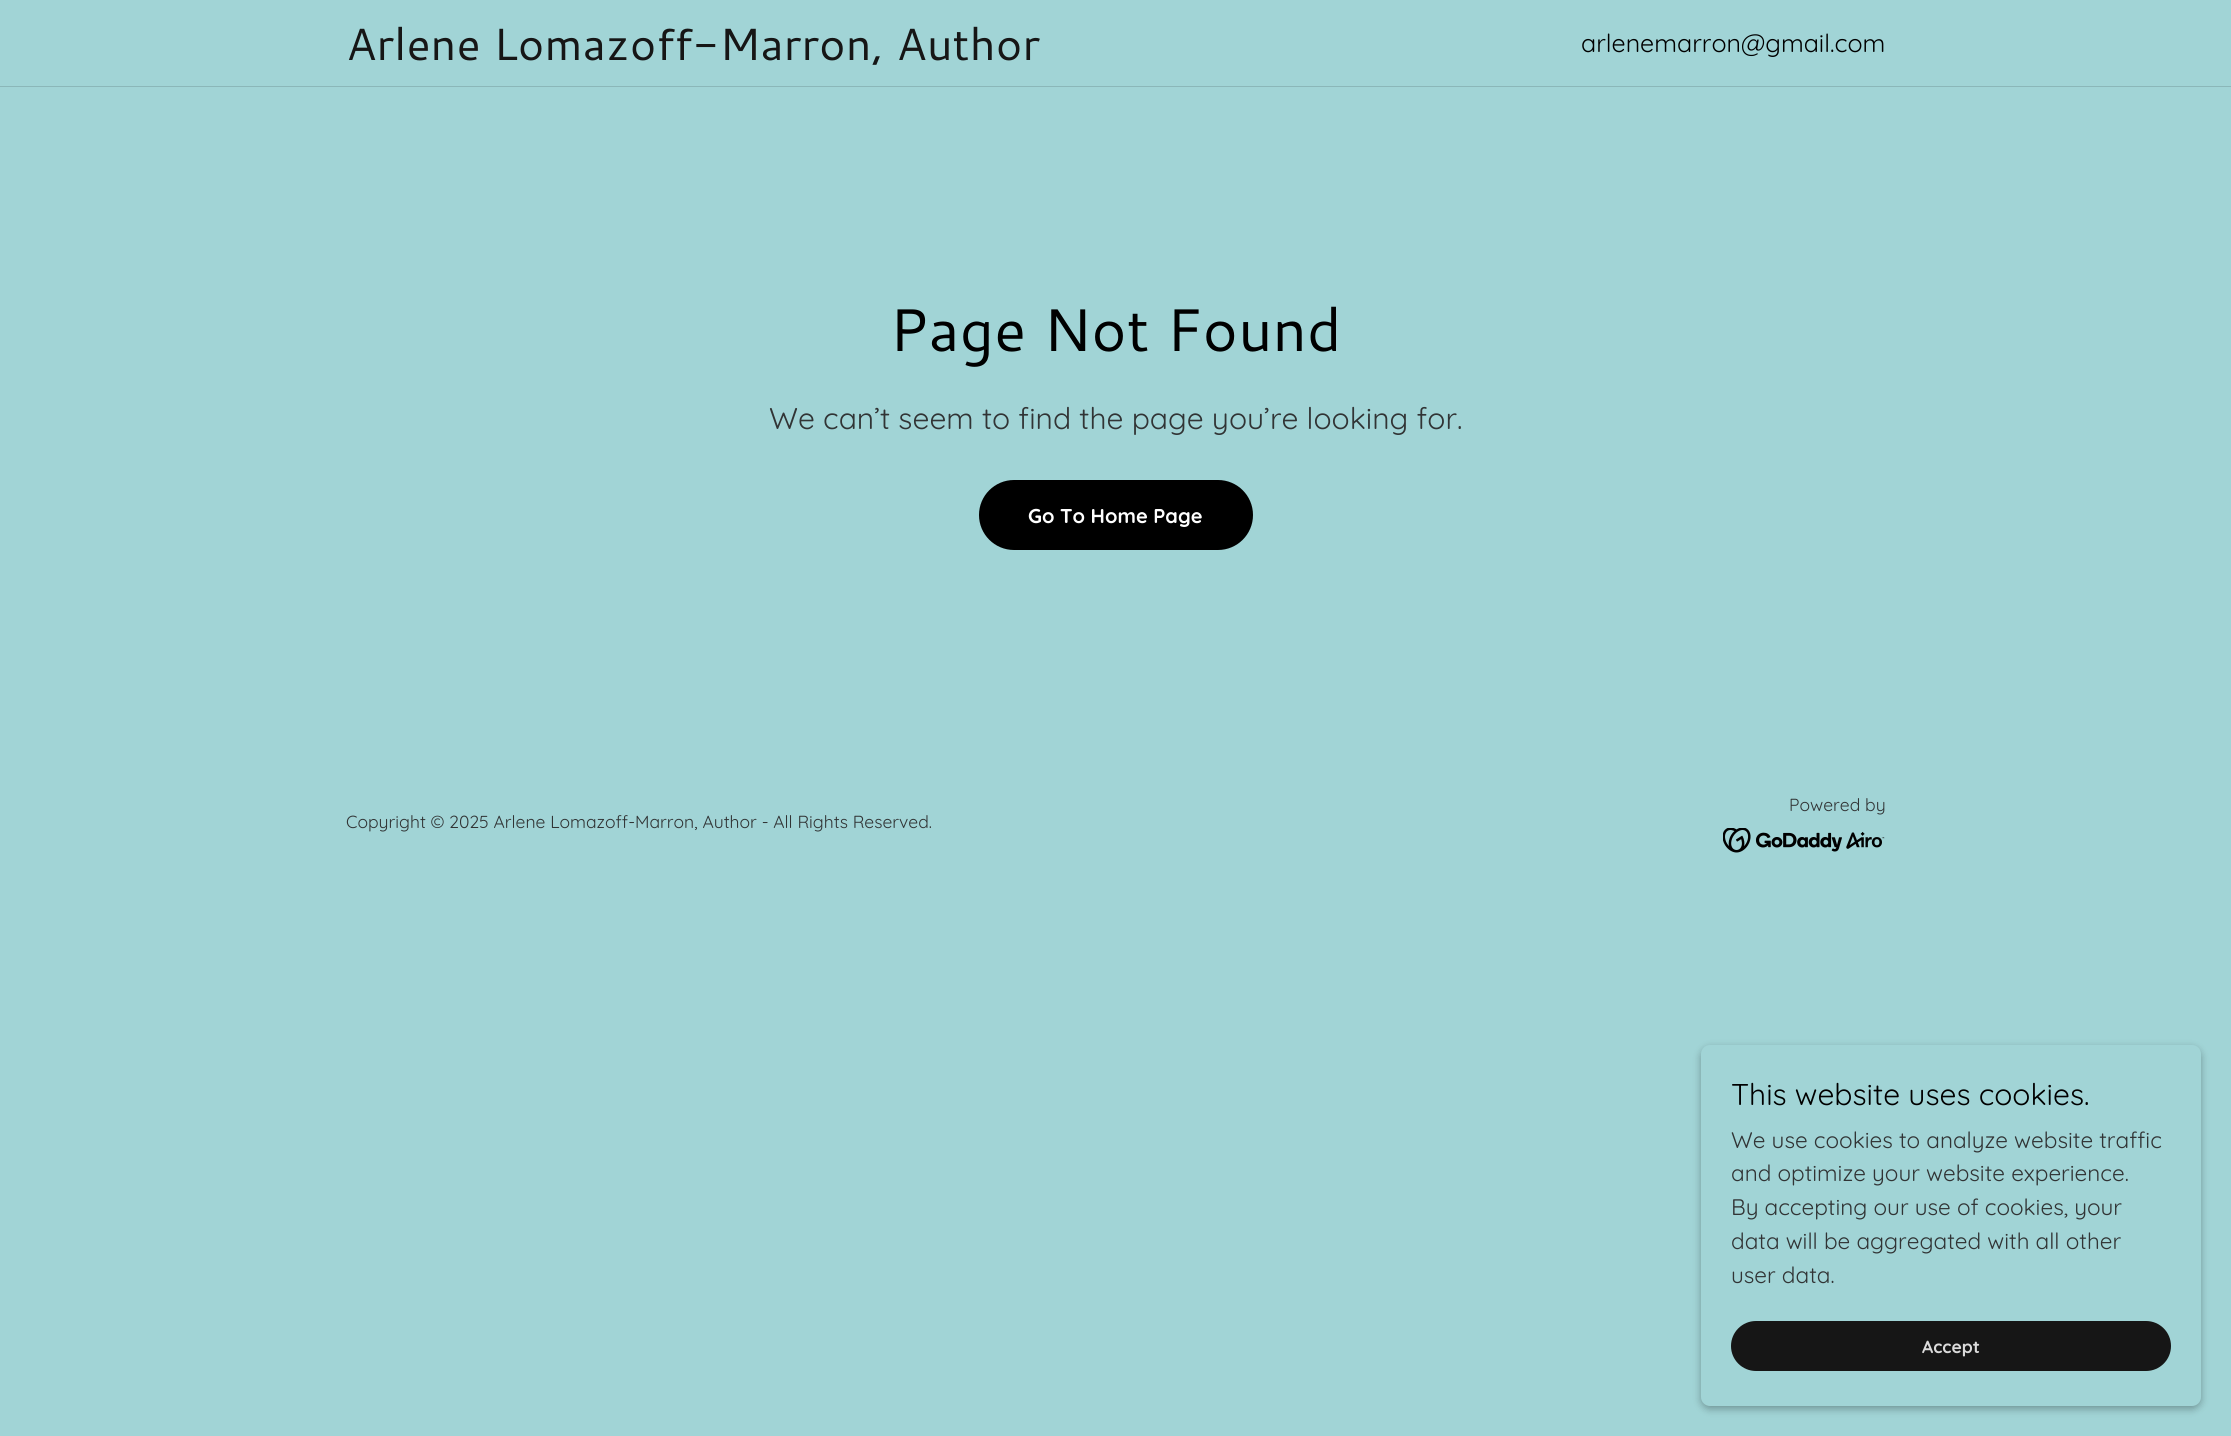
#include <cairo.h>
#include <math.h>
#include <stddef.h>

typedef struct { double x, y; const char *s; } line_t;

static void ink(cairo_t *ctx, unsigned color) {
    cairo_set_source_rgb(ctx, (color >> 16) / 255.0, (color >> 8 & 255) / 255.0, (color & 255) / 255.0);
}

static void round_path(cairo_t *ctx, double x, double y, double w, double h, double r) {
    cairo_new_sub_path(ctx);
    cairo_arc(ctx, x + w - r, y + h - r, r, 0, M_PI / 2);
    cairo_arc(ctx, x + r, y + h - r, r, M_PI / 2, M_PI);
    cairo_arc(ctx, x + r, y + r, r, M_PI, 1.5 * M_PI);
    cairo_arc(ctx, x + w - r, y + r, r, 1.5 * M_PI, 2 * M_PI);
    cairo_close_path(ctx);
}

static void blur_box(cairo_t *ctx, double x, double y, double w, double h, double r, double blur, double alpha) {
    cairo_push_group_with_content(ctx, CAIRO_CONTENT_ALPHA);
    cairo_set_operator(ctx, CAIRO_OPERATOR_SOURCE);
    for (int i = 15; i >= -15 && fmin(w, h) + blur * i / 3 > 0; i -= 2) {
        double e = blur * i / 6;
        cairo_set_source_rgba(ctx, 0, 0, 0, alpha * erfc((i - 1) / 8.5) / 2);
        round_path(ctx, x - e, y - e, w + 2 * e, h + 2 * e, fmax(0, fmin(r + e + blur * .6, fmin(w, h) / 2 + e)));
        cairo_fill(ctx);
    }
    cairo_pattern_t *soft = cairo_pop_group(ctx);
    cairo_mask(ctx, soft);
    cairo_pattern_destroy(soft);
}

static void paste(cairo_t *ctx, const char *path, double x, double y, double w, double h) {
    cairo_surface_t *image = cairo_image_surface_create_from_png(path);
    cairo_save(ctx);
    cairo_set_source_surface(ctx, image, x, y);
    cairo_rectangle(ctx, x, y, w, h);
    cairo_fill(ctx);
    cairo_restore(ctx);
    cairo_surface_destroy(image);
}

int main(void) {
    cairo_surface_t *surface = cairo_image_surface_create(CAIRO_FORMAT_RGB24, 2231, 1436);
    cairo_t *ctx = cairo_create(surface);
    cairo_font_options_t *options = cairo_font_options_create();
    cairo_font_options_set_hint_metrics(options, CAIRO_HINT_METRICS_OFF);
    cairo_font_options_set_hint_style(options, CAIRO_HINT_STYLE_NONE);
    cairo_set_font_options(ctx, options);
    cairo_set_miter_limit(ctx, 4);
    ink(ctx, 0xA1D4D6);
    cairo_paint(ctx);
    cairo_select_font_face(ctx, "Cantarell", CAIRO_FONT_SLANT_NORMAL, CAIRO_FONT_WEIGHT_NORMAL);
    cairo_set_font_size(ctx, 45);
    ink(ctx, 0x161616);
    cairo_move_to(ctx, 346, 60);
    cairo_show_text(ctx, "Arlene Lomazoff-Marron, Author");
    cairo_select_font_face(ctx, "Quicksand", CAIRO_FONT_SLANT_NORMAL, CAIRO_FONT_WEIGHT_NORMAL);
    cairo_set_font_size(ctx, 25);
    ink(ctx, 0x000000);
    cairo_move_to(ctx, 1581, 52);
    cairo_show_text(ctx, "arlenemarron@gmail.com");
    ink(ctx, 0x8BB7B9);
    cairo_rectangle(ctx, 0, 86, 2231, 1);
    cairo_fill(ctx);
    cairo_select_font_face(ctx, "Cantarell", CAIRO_FONT_SLANT_NORMAL, CAIRO_FONT_WEIGHT_NORMAL);
    cairo_set_font_size(ctx, 60);
    ink(ctx, 0x000000);
    cairo_move_to(ctx, 889, 351);
    cairo_show_text(ctx, "Page Not Found");
    cairo_select_font_face(ctx, "Quicksand", CAIRO_FONT_SLANT_NORMAL, CAIRO_FONT_WEIGHT_NORMAL);
    cairo_set_font_size(ctx, 30);
    ink(ctx, 0x313435);
    cairo_move_to(ctx, 769, 429);
    cairo_show_text(ctx, "We can’t seem to find the page you’re looking for.");
    ink(ctx, 0x000000);
    round_path(ctx, 979, 480, 274, 70, 35);
    cairo_fill(ctx);
    cairo_select_font_face(ctx, "Quicksand", CAIRO_FONT_SLANT_NORMAL, CAIRO_FONT_WEIGHT_BOLD);
    cairo_set_font_size(ctx, 20);
    ink(ctx, 0xFFFFFF);
    cairo_move_to(ctx, 1028, 523);
    cairo_show_text(ctx, "Go To Home Page");
    cairo_select_font_face(ctx, "Quicksand", CAIRO_FONT_SLANT_NORMAL, CAIRO_FONT_WEIGHT_NORMAL);
    cairo_set_font_size(ctx, 17.5);
    ink(ctx, 0x313435);
    cairo_move_to(ctx, 1789, 811);
    cairo_show_text(ctx, "Powered by");
    paste(ctx, "media/1.png", 1723, 828, 162, 25);
    cairo_move_to(ctx, 346, 828);
    cairo_show_text(ctx, "Copyright © 2025 Arlene Lomazoff-Marron, Author - All Rights Reserved.");
    ink(ctx, 0x000000);
    blur_box(ctx, 1701, 1048, 500, 361, 9, 4, 0.3);
    ink(ctx, 0xA1D4D6);
    round_path(ctx, 1701, 1045, 500, 361, 9);
    cairo_fill(ctx);
    cairo_set_font_size(ctx, 30);
    ink(ctx, 0x000000);
    cairo_move_to(ctx, 1731, 1105);
    cairo_show_text(ctx, "This website uses cookies.");
    cairo_set_font_size(ctx, 22.5);
    ink(ctx, 0x313435);
    {
        static const line_t items[] = {
            {1731, 1148, "We use cookies to analyze website traffic"},
            {1731, 1181, "and optimize your website experience."},
            {1731, 1215, "By accepting our use of cookies, your"},
            {1731, 1249, "data will be aggregated with all other"},
            {1731, 1283, "user data."},
        };
        for (size_t i = 0; i < sizeof items / sizeof *items; i++) {
            cairo_move_to(ctx, items[i].x, items[i].y);
            cairo_show_text(ctx, items[i].s);
        }
    }
    ink(ctx, 0x161616);
    round_path(ctx, 1731, 1321, 440, 50, 25);
    cairo_fill(ctx);
    cairo_select_font_face(ctx, "Quicksand", CAIRO_FONT_SLANT_NORMAL, CAIRO_FONT_WEIGHT_BOLD);
    cairo_set_font_size(ctx, 17.5);
    ink(ctx, 0xDBDBDB);
    cairo_move_to(ctx, 1922, 1353);
    cairo_show_text(ctx, "Accept");
    cairo_surface_write_to_png(surface, "image.png");
    cairo_font_options_destroy(options);
    cairo_destroy(ctx);
    cairo_surface_destroy(surface);
    return 0;
}
